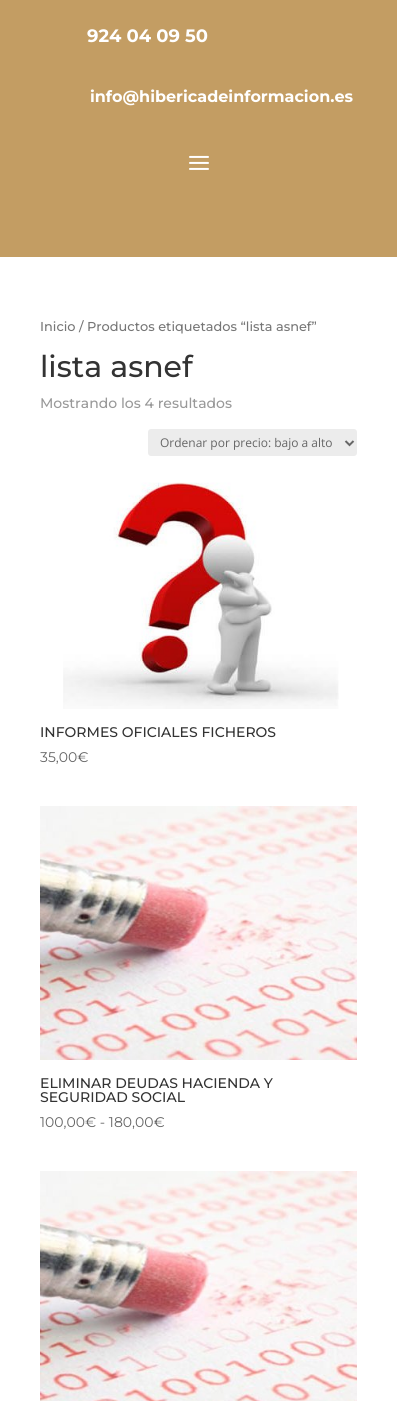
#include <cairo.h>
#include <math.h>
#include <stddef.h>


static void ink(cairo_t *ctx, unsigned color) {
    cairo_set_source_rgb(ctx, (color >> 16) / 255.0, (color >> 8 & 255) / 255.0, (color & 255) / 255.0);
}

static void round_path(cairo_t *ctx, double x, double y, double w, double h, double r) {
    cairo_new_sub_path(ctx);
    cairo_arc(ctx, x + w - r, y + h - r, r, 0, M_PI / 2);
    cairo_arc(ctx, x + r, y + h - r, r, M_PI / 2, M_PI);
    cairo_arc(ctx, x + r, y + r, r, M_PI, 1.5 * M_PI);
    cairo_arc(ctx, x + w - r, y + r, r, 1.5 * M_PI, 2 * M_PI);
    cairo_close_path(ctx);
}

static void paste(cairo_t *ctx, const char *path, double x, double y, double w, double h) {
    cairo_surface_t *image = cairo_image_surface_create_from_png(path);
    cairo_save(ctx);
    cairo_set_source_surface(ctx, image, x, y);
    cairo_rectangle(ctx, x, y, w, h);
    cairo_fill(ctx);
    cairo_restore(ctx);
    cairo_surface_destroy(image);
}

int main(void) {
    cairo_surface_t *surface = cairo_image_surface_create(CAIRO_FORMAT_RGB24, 397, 1401);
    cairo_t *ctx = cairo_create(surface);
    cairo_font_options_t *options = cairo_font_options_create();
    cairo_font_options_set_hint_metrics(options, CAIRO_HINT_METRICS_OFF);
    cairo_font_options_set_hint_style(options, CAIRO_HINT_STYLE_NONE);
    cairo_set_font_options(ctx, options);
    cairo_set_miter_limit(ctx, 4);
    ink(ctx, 0xFFFFFF);
    cairo_paint(ctx);
    ink(ctx, 0xC39D63);
    cairo_rectangle(ctx, 0, 0, 397, 257);
    cairo_fill(ctx);
    cairo_select_font_face(ctx, "Montserrat", CAIRO_FONT_SLANT_NORMAL, CAIRO_FONT_WEIGHT_BOLD);
    cairo_set_font_size(ctx, 18);
    ink(ctx, 0xFFFFFF);
    cairo_move_to(ctx, 87, 42);
    cairo_show_text(ctx, "924 04 09 50");
    cairo_set_font_size(ctx, 16);
    cairo_move_to(ctx, 90, 102);
    cairo_show_text(ctx, "info@hibericadeinformacion.es");
    paste(ctx, "media/1.png", 189, 155, 20, 15);
    cairo_select_font_face(ctx, "Montserrat Medium", CAIRO_FONT_SLANT_NORMAL, CAIRO_FONT_WEIGHT_NORMAL);
    cairo_set_font_size(ctx, 12.9);
    ink(ctx, 0x767676);
    cairo_move_to(ctx, 40, 331);
    cairo_show_text(ctx, "Inicio / Productos etiquetados “lista asnef”");
    cairo_set_font_size(ctx, 30);
    ink(ctx, 0x333333);
    cairo_move_to(ctx, 40, 377);
    cairo_show_text(ctx, "lista asnef");
    cairo_set_font_size(ctx, 14);
    ink(ctx, 0x999999);
    cairo_move_to(ctx, 40, 408);
    cairo_show_text(ctx, "Mostrando los 4 resultados");
    ink(ctx, 0xECECEC);
    round_path(ctx, 148, 429, 209, 27, 3);
    cairo_fill(ctx);
    cairo_new_path(ctx);
    cairo_move_to(ctx, 345.5, 441);
    cairo_line_to(ctx, 349.5, 445);
    cairo_line_to(ctx, 353.5, 441);
    ink(ctx, 0x666666);
    cairo_stroke(ctx);
    cairo_select_font_face(ctx, "Open Sans", CAIRO_FONT_SLANT_NORMAL, CAIRO_FONT_WEIGHT_NORMAL);
    cairo_set_font_size(ctx, 12);
    cairo_move_to(ctx, 160, 447);
    cairo_show_text(ctx, "Ordenar por precio: bajo a alto");
    paste(ctx, "media/2.png", 63, 482, 276, 227);
    cairo_select_font_face(ctx, "Montserrat Medium", CAIRO_FONT_SLANT_NORMAL, CAIRO_FONT_WEIGHT_NORMAL);
    cairo_set_font_size(ctx, 14);
    ink(ctx, 0x333333);
    cairo_move_to(ctx, 40, 737);
    cairo_show_text(ctx, "INFORMES OFICIALES FICHEROS");
    cairo_select_font_face(ctx, "Montserrat", CAIRO_FONT_SLANT_NORMAL, CAIRO_FONT_WEIGHT_NORMAL);
    ink(ctx, 0x666666);
    cairo_move_to(ctx, 40, 762);
    cairo_show_text(ctx, "35,00€");
    paste(ctx, "media/3.png", 40, 806, 317, 254);
    cairo_select_font_face(ctx, "Montserrat Medium", CAIRO_FONT_SLANT_NORMAL, CAIRO_FONT_WEIGHT_NORMAL);
    ink(ctx, 0x333333);
    cairo_move_to(ctx, 40, 1088);
    cairo_show_text(ctx, "ELIMINAR DEUDAS HACIENDA Y");
    cairo_move_to(ctx, 40, 1102);
    cairo_show_text(ctx, "SEGURIDAD SOCIAL");
    cairo_select_font_face(ctx, "Montserrat", CAIRO_FONT_SLANT_NORMAL, CAIRO_FONT_WEIGHT_NORMAL);
    ink(ctx, 0x666666);
    cairo_move_to(ctx, 40, 1127);
    cairo_show_text(ctx, "100,00€ - 180,00€");
    paste(ctx, "media/4.png", 40, 1171, 317, 230);
    cairo_surface_write_to_png(surface, "image.png");
    cairo_font_options_destroy(options);
    cairo_destroy(ctx);
    cairo_surface_destroy(surface);
    return 0;
}
